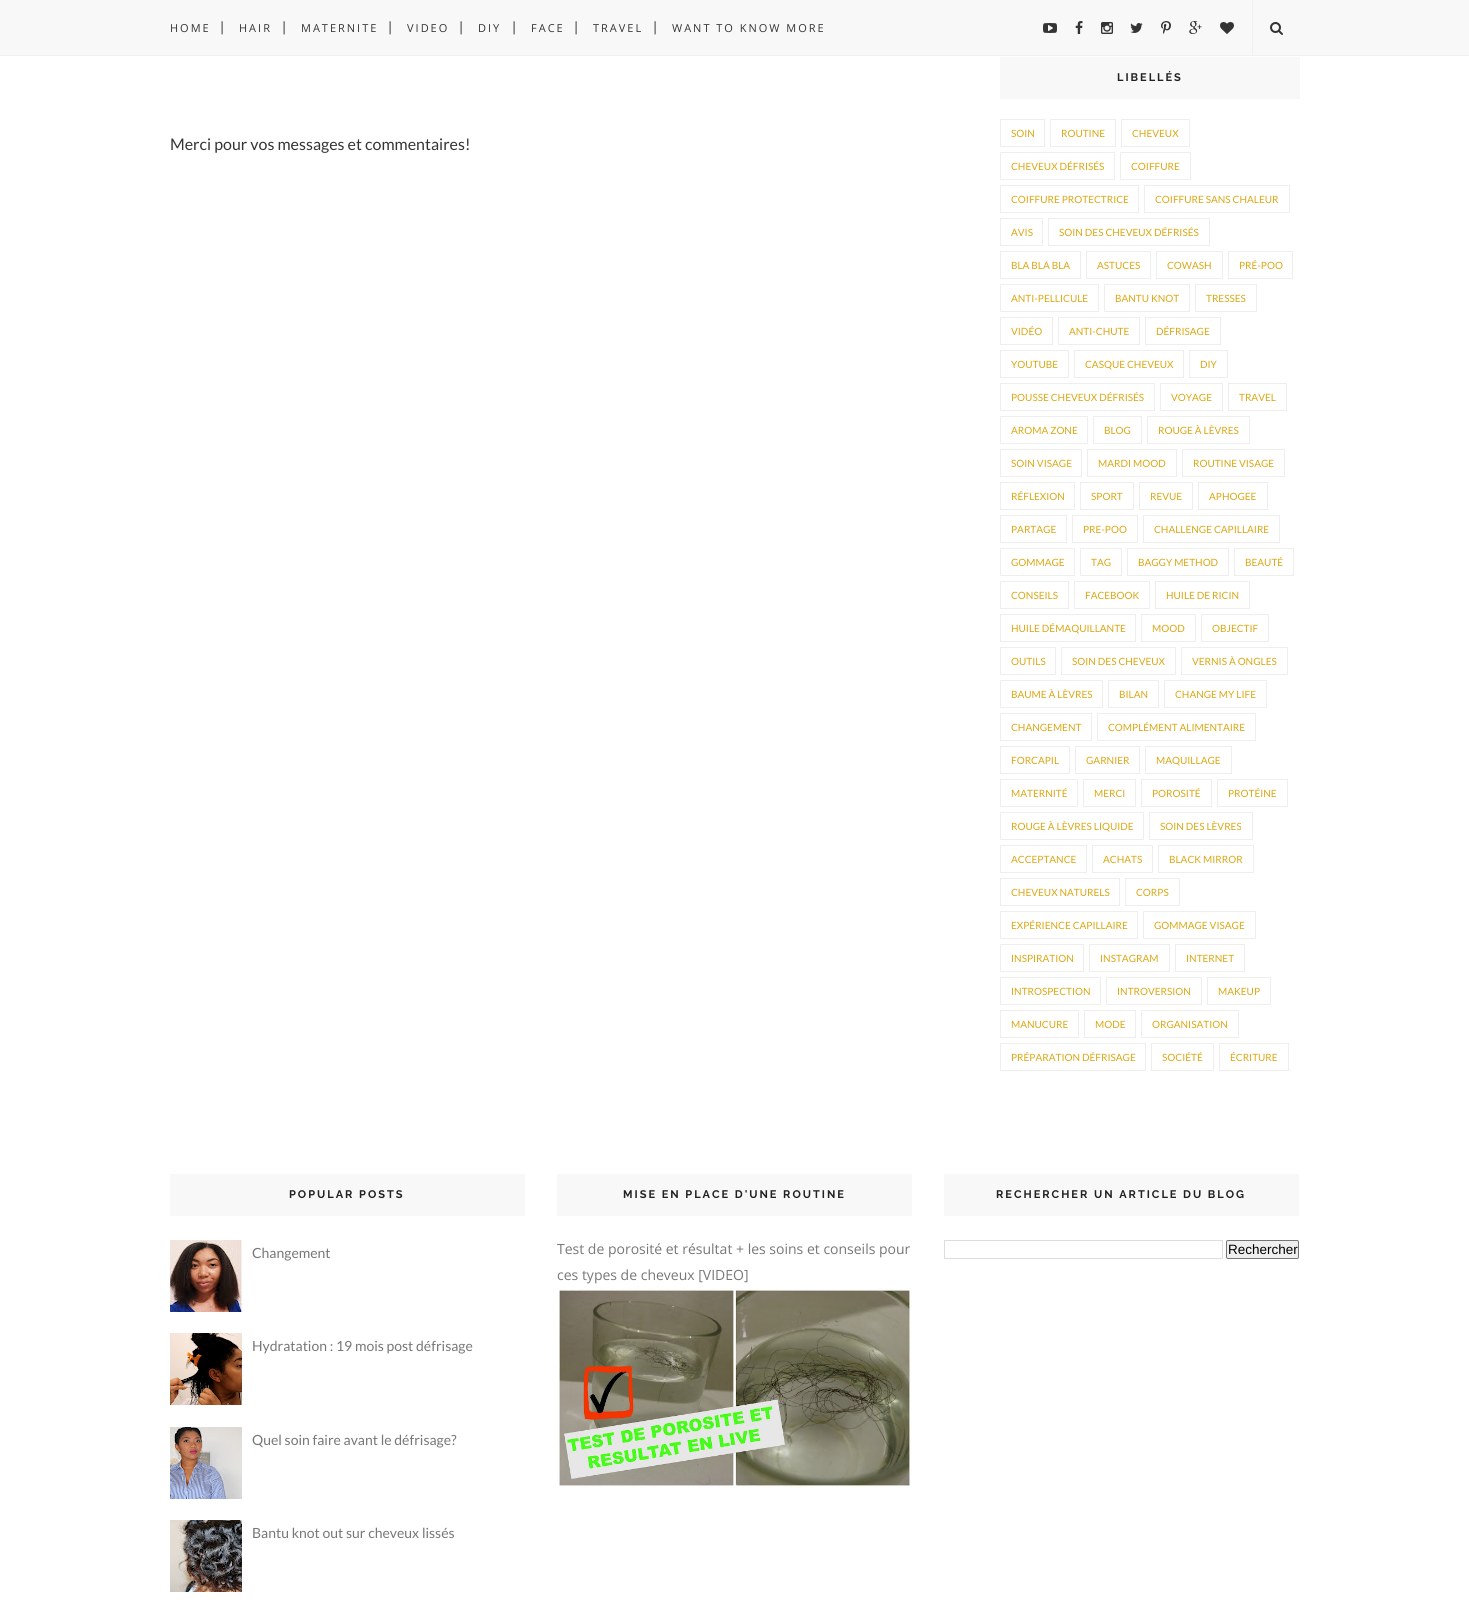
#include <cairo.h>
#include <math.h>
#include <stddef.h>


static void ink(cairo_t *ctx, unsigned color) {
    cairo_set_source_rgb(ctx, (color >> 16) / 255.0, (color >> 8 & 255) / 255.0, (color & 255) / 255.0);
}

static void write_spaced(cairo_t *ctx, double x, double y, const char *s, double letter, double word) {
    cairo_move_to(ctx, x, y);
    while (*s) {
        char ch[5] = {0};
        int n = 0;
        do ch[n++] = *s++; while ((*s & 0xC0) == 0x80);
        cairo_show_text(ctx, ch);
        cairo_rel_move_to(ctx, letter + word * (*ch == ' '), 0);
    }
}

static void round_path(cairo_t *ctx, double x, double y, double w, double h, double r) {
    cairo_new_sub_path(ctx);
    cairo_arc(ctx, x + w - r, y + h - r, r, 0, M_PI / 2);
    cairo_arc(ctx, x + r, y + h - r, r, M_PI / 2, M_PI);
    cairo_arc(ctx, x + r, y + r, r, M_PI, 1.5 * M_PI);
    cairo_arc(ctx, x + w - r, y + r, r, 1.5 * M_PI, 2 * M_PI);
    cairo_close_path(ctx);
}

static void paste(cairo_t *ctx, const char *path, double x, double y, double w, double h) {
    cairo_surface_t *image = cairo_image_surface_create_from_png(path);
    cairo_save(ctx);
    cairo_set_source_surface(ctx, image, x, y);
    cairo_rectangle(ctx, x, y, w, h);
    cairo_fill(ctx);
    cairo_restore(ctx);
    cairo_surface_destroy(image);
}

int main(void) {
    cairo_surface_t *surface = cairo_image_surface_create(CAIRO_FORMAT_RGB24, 1469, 1613);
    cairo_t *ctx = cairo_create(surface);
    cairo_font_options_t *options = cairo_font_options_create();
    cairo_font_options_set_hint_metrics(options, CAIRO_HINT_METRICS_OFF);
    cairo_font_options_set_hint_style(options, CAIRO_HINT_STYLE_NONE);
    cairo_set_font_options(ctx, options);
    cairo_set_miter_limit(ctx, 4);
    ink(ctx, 0xFFFFFF);
    cairo_paint(ctx);
    ink(ctx, 0xF8F8F8);
    cairo_rectangle(ctx, 0, 0, 1469, 55);
    cairo_fill(ctx);
    ink(ctx, 0xF0F0F0);
    cairo_rectangle(ctx, 0, 55, 1469, 1);
    cairo_fill(ctx);
    cairo_select_font_face(ctx, "Open Sans", CAIRO_FONT_SLANT_NORMAL, CAIRO_FONT_WEIGHT_NORMAL);
    cairo_set_font_size(ctx, 11);
    ink(ctx, 0x343434);
    write_spaced(ctx, 170, 32, "HOME", 2, 0);
    cairo_select_font_face(ctx, "Lato", CAIRO_FONT_SLANT_NORMAL, CAIRO_FONT_WEIGHT_NORMAL);
    cairo_set_font_size(ctx, 14);
    cairo_move_to(ctx, 220, 32);
    cairo_show_text(ctx, "|");
    cairo_select_font_face(ctx, "Open Sans", CAIRO_FONT_SLANT_NORMAL, CAIRO_FONT_WEIGHT_NORMAL);
    cairo_set_font_size(ctx, 11);
    write_spaced(ctx, 239, 32, "HAIR", 2, 0);
    cairo_select_font_face(ctx, "Lato", CAIRO_FONT_SLANT_NORMAL, CAIRO_FONT_WEIGHT_NORMAL);
    cairo_set_font_size(ctx, 14);
    cairo_move_to(ctx, 282, 32);
    cairo_show_text(ctx, "|");
    cairo_select_font_face(ctx, "Open Sans", CAIRO_FONT_SLANT_NORMAL, CAIRO_FONT_WEIGHT_NORMAL);
    cairo_set_font_size(ctx, 11);
    write_spaced(ctx, 301, 32, "MATERNITE", 2, 0);
    cairo_select_font_face(ctx, "Lato", CAIRO_FONT_SLANT_NORMAL, CAIRO_FONT_WEIGHT_NORMAL);
    cairo_set_font_size(ctx, 14);
    cairo_move_to(ctx, 388, 32);
    cairo_show_text(ctx, "|");
    cairo_select_font_face(ctx, "Open Sans", CAIRO_FONT_SLANT_NORMAL, CAIRO_FONT_WEIGHT_NORMAL);
    cairo_set_font_size(ctx, 11);
    write_spaced(ctx, 407, 32, "VIDEO", 2, 0);
    cairo_select_font_face(ctx, "Lato", CAIRO_FONT_SLANT_NORMAL, CAIRO_FONT_WEIGHT_NORMAL);
    cairo_set_font_size(ctx, 14);
    cairo_move_to(ctx, 459, 32);
    cairo_show_text(ctx, "|");
    cairo_select_font_face(ctx, "Open Sans", CAIRO_FONT_SLANT_NORMAL, CAIRO_FONT_WEIGHT_NORMAL);
    cairo_set_font_size(ctx, 11);
    write_spaced(ctx, 478, 32, "DIY", 2, 0);
    cairo_select_font_face(ctx, "Lato", CAIRO_FONT_SLANT_NORMAL, CAIRO_FONT_WEIGHT_NORMAL);
    cairo_set_font_size(ctx, 14);
    cairo_move_to(ctx, 512, 32);
    cairo_show_text(ctx, "|");
    cairo_select_font_face(ctx, "Open Sans", CAIRO_FONT_SLANT_NORMAL, CAIRO_FONT_WEIGHT_NORMAL);
    cairo_set_font_size(ctx, 11);
    write_spaced(ctx, 531, 32, "FACE", 2, 0);
    cairo_select_font_face(ctx, "Lato", CAIRO_FONT_SLANT_NORMAL, CAIRO_FONT_WEIGHT_NORMAL);
    cairo_set_font_size(ctx, 14);
    cairo_move_to(ctx, 574, 32);
    cairo_show_text(ctx, "|");
    cairo_select_font_face(ctx, "Open Sans", CAIRO_FONT_SLANT_NORMAL, CAIRO_FONT_WEIGHT_NORMAL);
    cairo_set_font_size(ctx, 11);
    write_spaced(ctx, 593, 32, "TRAVEL", 2, 0);
    cairo_select_font_face(ctx, "Lato", CAIRO_FONT_SLANT_NORMAL, CAIRO_FONT_WEIGHT_NORMAL);
    cairo_set_font_size(ctx, 14);
    cairo_move_to(ctx, 653, 32);
    cairo_show_text(ctx, "|");
    cairo_select_font_face(ctx, "Open Sans", CAIRO_FONT_SLANT_NORMAL, CAIRO_FONT_WEIGHT_NORMAL);
    cairo_set_font_size(ctx, 11);
    write_spaced(ctx, 672, 32, "WANT TO KNOW MORE", 2, 0);
    paste(ctx, "media/1.png", 1043, 23, 14, 10);
    paste(ctx, "media/2.png", 1075, 21, 8, 13);
    paste(ctx, "media/3.png", 1101, 22, 12, 12);
    paste(ctx, "media/4.png", 1130, 23, 13, 10);
    paste(ctx, "media/5.png", 1161, 21, 10, 13);
    paste(ctx, "media/6.png", 1189, 21, 13, 13);
    paste(ctx, "media/7.png", 1220, 22, 14, 12);
    ink(ctx, 0xF0F0F0);
    cairo_rectangle(ctx, 1252, 0, 1, 55);
    cairo_fill(ctx);
    paste(ctx, "media/8.png", 1270, 22, 13, 13);
    cairo_select_font_face(ctx, "Lato", CAIRO_FONT_SLANT_NORMAL, CAIRO_FONT_WEIGHT_NORMAL);
    cairo_set_font_size(ctx, 16);
    ink(ctx, 0x343434);
    cairo_move_to(ctx, 170, 150);
    cairo_show_text(ctx, "Merci pour vos messages et commentaires!");
    ink(ctx, 0xF8F8F8);
    cairo_rectangle(ctx, 1000, 57, 300, 42);
    cairo_fill(ctx);
    cairo_select_font_face(ctx, "Raleway", CAIRO_FONT_SLANT_NORMAL, CAIRO_FONT_WEIGHT_BOLD);
    cairo_set_font_size(ctx, 11);
    ink(ctx, 0x222222);
    write_spaced(ctx, 1117, 81, "LIBELLÉS", 2, 0);
    cairo_rectangle(ctx, 1000.5, 119.5, 44, 27);
    ink(ctx, 0xEEEEEE);
    cairo_set_line_width(ctx, 1);
    cairo_stroke(ctx);
    cairo_select_font_face(ctx, "Lato", CAIRO_FONT_SLANT_NORMAL, CAIRO_FONT_WEIGHT_NORMAL);
    cairo_set_font_size(ctx, 10);
    ink(ctx, 0xDCA714);
    cairo_move_to(ctx, 1011, 137);
    cairo_show_text(ctx, "SOIN");
    cairo_rectangle(ctx, 1050.5, 119.5, 65, 27);
    ink(ctx, 0xEEEEEE);
    cairo_stroke(ctx);
    ink(ctx, 0xDCA714);
    cairo_move_to(ctx, 1061, 137);
    cairo_show_text(ctx, "ROUTINE");
    cairo_rectangle(ctx, 1121.5, 119.5, 68, 27);
    ink(ctx, 0xEEEEEE);
    cairo_stroke(ctx);
    ink(ctx, 0xDCA714);
    cairo_move_to(ctx, 1132, 137);
    cairo_show_text(ctx, "CHEVEUX");
    cairo_rectangle(ctx, 1000.5, 152.5, 114, 27);
    ink(ctx, 0xEEEEEE);
    cairo_stroke(ctx);
    ink(ctx, 0xDCA714);
    cairo_move_to(ctx, 1011, 170);
    cairo_show_text(ctx, "CHEVEUX DÉFRISÉS");
    cairo_rectangle(ctx, 1120.5, 152.5, 70, 27);
    ink(ctx, 0xEEEEEE);
    cairo_stroke(ctx);
    ink(ctx, 0xDCA714);
    cairo_move_to(ctx, 1131, 170);
    cairo_show_text(ctx, "COIFFURE");
    cairo_rectangle(ctx, 1000.5, 185.5, 138, 27);
    ink(ctx, 0xEEEEEE);
    cairo_stroke(ctx);
    ink(ctx, 0xDCA714);
    cairo_move_to(ctx, 1011, 203);
    cairo_show_text(ctx, "COIFFURE PROTECTRICE");
    cairo_rectangle(ctx, 1144.5, 185.5, 145, 27);
    ink(ctx, 0xEEEEEE);
    cairo_stroke(ctx);
    ink(ctx, 0xDCA714);
    cairo_move_to(ctx, 1155, 203);
    cairo_show_text(ctx, "COIFFURE SANS CHALEUR");
    cairo_rectangle(ctx, 1000.5, 218.5, 42, 27);
    ink(ctx, 0xEEEEEE);
    cairo_stroke(ctx);
    ink(ctx, 0xDCA714);
    cairo_move_to(ctx, 1011, 236);
    cairo_show_text(ctx, "AVIS");
    cairo_rectangle(ctx, 1048.5, 218.5, 161, 27);
    ink(ctx, 0xEEEEEE);
    cairo_stroke(ctx);
    ink(ctx, 0xDCA714);
    cairo_move_to(ctx, 1059, 236);
    cairo_show_text(ctx, "SOIN DES CHEVEUX DÉFRISÉS");
    cairo_rectangle(ctx, 1000.5, 251.5, 80, 27);
    ink(ctx, 0xEEEEEE);
    cairo_stroke(ctx);
    ink(ctx, 0xDCA714);
    cairo_move_to(ctx, 1011, 269);
    cairo_show_text(ctx, "BLA BLA BLA");
    cairo_rectangle(ctx, 1086.5, 251.5, 64, 27);
    ink(ctx, 0xEEEEEE);
    cairo_stroke(ctx);
    ink(ctx, 0xDCA714);
    cairo_move_to(ctx, 1097, 269);
    cairo_show_text(ctx, "ASTUCES");
    cairo_rectangle(ctx, 1156.5, 251.5, 66, 27);
    ink(ctx, 0xEEEEEE);
    cairo_stroke(ctx);
    ink(ctx, 0xDCA714);
    cairo_move_to(ctx, 1167, 269);
    cairo_show_text(ctx, "COWASH");
    cairo_rectangle(ctx, 1228.5, 251.5, 64, 27);
    ink(ctx, 0xEEEEEE);
    cairo_stroke(ctx);
    ink(ctx, 0xDCA714);
    cairo_move_to(ctx, 1239, 269);
    cairo_show_text(ctx, "PRÉ-POO");
    cairo_rectangle(ctx, 1000.5, 284.5, 98, 27);
    ink(ctx, 0xEEEEEE);
    cairo_stroke(ctx);
    ink(ctx, 0xDCA714);
    cairo_move_to(ctx, 1011, 302);
    cairo_show_text(ctx, "ANTI-PELLICULE");
    cairo_rectangle(ctx, 1104.5, 284.5, 85, 27);
    ink(ctx, 0xEEEEEE);
    cairo_stroke(ctx);
    ink(ctx, 0xDCA714);
    cairo_move_to(ctx, 1115, 302);
    cairo_show_text(ctx, "BANTU KNOT");
    cairo_rectangle(ctx, 1195.5, 284.5, 61, 27);
    ink(ctx, 0xEEEEEE);
    cairo_stroke(ctx);
    ink(ctx, 0xDCA714);
    cairo_move_to(ctx, 1206, 302);
    cairo_show_text(ctx, "TRESSES");
    cairo_rectangle(ctx, 1000.5, 317.5, 52, 27);
    ink(ctx, 0xEEEEEE);
    cairo_stroke(ctx);
    ink(ctx, 0xDCA714);
    cairo_move_to(ctx, 1011, 335);
    cairo_show_text(ctx, "VIDÉO");
    cairo_rectangle(ctx, 1058.5, 317.5, 81, 27);
    ink(ctx, 0xEEEEEE);
    cairo_stroke(ctx);
    ink(ctx, 0xDCA714);
    cairo_move_to(ctx, 1069, 335);
    cairo_show_text(ctx, "ANTI-CHUTE");
    cairo_rectangle(ctx, 1145.5, 317.5, 75, 27);
    ink(ctx, 0xEEEEEE);
    cairo_stroke(ctx);
    ink(ctx, 0xDCA714);
    cairo_move_to(ctx, 1156, 335);
    cairo_show_text(ctx, "DÉFRISAGE");
    cairo_rectangle(ctx, 1000.5, 350.5, 68, 27);
    ink(ctx, 0xEEEEEE);
    cairo_stroke(ctx);
    ink(ctx, 0xDCA714);
    cairo_move_to(ctx, 1011, 368);
    cairo_show_text(ctx, "YOUTUBE");
    cairo_rectangle(ctx, 1074.5, 350.5, 109, 27);
    ink(ctx, 0xEEEEEE);
    cairo_stroke(ctx);
    ink(ctx, 0xDCA714);
    cairo_move_to(ctx, 1085, 368);
    cairo_show_text(ctx, "CASQUE CHEVEUX");
    cairo_rectangle(ctx, 1189.5, 350.5, 38, 27);
    ink(ctx, 0xEEEEEE);
    cairo_stroke(ctx);
    ink(ctx, 0xDCA714);
    cairo_move_to(ctx, 1200, 368);
    cairo_show_text(ctx, "DIY");
    cairo_rectangle(ctx, 1000.5, 383.5, 154, 27);
    ink(ctx, 0xEEEEEE);
    cairo_stroke(ctx);
    ink(ctx, 0xDCA714);
    cairo_move_to(ctx, 1011, 401);
    cairo_show_text(ctx, "POUSSE CHEVEUX DÉFRISÉS");
    cairo_rectangle(ctx, 1160.5, 383.5, 62, 27);
    ink(ctx, 0xEEEEEE);
    cairo_stroke(ctx);
    ink(ctx, 0xDCA714);
    cairo_move_to(ctx, 1171, 401);
    cairo_show_text(ctx, "VOYAGE");
    cairo_rectangle(ctx, 1228.5, 383.5, 58, 27);
    ink(ctx, 0xEEEEEE);
    cairo_stroke(ctx);
    ink(ctx, 0xDCA714);
    cairo_move_to(ctx, 1239, 401);
    cairo_show_text(ctx, "TRAVEL");
    cairo_rectangle(ctx, 1000.5, 416.5, 87, 27);
    ink(ctx, 0xEEEEEE);
    cairo_stroke(ctx);
    ink(ctx, 0xDCA714);
    cairo_move_to(ctx, 1011, 434);
    cairo_show_text(ctx, "AROMA ZONE");
    cairo_rectangle(ctx, 1093.5, 416.5, 48, 27);
    ink(ctx, 0xEEEEEE);
    cairo_stroke(ctx);
    ink(ctx, 0xDCA714);
    cairo_move_to(ctx, 1104, 434);
    cairo_show_text(ctx, "BLOG");
    cairo_rectangle(ctx, 1147.5, 416.5, 102, 27);
    ink(ctx, 0xEEEEEE);
    cairo_stroke(ctx);
    ink(ctx, 0xDCA714);
    cairo_move_to(ctx, 1158, 434);
    cairo_show_text(ctx, "ROUGE À LÈVRES");
    cairo_rectangle(ctx, 1000.5, 449.5, 81, 27);
    ink(ctx, 0xEEEEEE);
    cairo_stroke(ctx);
    ink(ctx, 0xDCA714);
    cairo_move_to(ctx, 1011, 467);
    cairo_show_text(ctx, "SOIN VISAGE");
    cairo_rectangle(ctx, 1087.5, 449.5, 89, 27);
    ink(ctx, 0xEEEEEE);
    cairo_stroke(ctx);
    ink(ctx, 0xDCA714);
    cairo_move_to(ctx, 1098, 467);
    cairo_show_text(ctx, "MARDI MOOD");
    cairo_rectangle(ctx, 1182.5, 449.5, 102, 27);
    ink(ctx, 0xEEEEEE);
    cairo_stroke(ctx);
    ink(ctx, 0xDCA714);
    cairo_move_to(ctx, 1193, 467);
    cairo_show_text(ctx, "ROUTINE VISAGE");
    cairo_rectangle(ctx, 1000.5, 482.5, 74, 27);
    ink(ctx, 0xEEEEEE);
    cairo_stroke(ctx);
    ink(ctx, 0xDCA714);
    cairo_move_to(ctx, 1011, 500);
    cairo_show_text(ctx, "RÉFLEXION");
    cairo_rectangle(ctx, 1080.5, 482.5, 53, 27);
    ink(ctx, 0xEEEEEE);
    cairo_stroke(ctx);
    ink(ctx, 0xDCA714);
    cairo_move_to(ctx, 1091, 500);
    cairo_show_text(ctx, "SPORT");
    cairo_rectangle(ctx, 1139.5, 482.5, 53, 27);
    ink(ctx, 0xEEEEEE);
    cairo_stroke(ctx);
    ink(ctx, 0xDCA714);
    cairo_move_to(ctx, 1150, 500);
    cairo_show_text(ctx, "REVUE");
    cairo_rectangle(ctx, 1198.5, 482.5, 69, 27);
    ink(ctx, 0xEEEEEE);
    cairo_stroke(ctx);
    ink(ctx, 0xDCA714);
    cairo_move_to(ctx, 1209, 500);
    cairo_show_text(ctx, "APHOGEE");
    cairo_rectangle(ctx, 1000.5, 515.5, 66, 27);
    ink(ctx, 0xEEEEEE);
    cairo_stroke(ctx);
    ink(ctx, 0xDCA714);
    cairo_move_to(ctx, 1011, 533);
    cairo_show_text(ctx, "PARTAGE");
    cairo_rectangle(ctx, 1072.5, 515.5, 65, 27);
    ink(ctx, 0xEEEEEE);
    cairo_stroke(ctx);
    ink(ctx, 0xDCA714);
    cairo_move_to(ctx, 1083, 533);
    cairo_show_text(ctx, "PRE-POO");
    cairo_rectangle(ctx, 1143.5, 515.5, 136, 27);
    ink(ctx, 0xEEEEEE);
    cairo_stroke(ctx);
    ink(ctx, 0xDCA714);
    cairo_move_to(ctx, 1154, 533);
    cairo_show_text(ctx, "CHALLENGE CAPILLAIRE");
    cairo_rectangle(ctx, 1000.5, 548.5, 74, 27);
    ink(ctx, 0xEEEEEE);
    cairo_stroke(ctx);
    ink(ctx, 0xDCA714);
    cairo_move_to(ctx, 1011, 566);
    cairo_show_text(ctx, "GOMMAGE");
    cairo_rectangle(ctx, 1080.5, 548.5, 41, 27);
    ink(ctx, 0xEEEEEE);
    cairo_stroke(ctx);
    ink(ctx, 0xDCA714);
    cairo_move_to(ctx, 1091, 566);
    cairo_show_text(ctx, "TAG");
    cairo_rectangle(ctx, 1127.5, 548.5, 101, 27);
    ink(ctx, 0xEEEEEE);
    cairo_stroke(ctx);
    ink(ctx, 0xDCA714);
    cairo_move_to(ctx, 1138, 566);
    cairo_show_text(ctx, "BAGGY METHOD");
    cairo_rectangle(ctx, 1234.5, 548.5, 59, 27);
    ink(ctx, 0xEEEEEE);
    cairo_stroke(ctx);
    ink(ctx, 0xDCA714);
    cairo_move_to(ctx, 1245, 566);
    cairo_show_text(ctx, "BEAUTÉ");
    cairo_rectangle(ctx, 1000.5, 581.5, 68, 27);
    ink(ctx, 0xEEEEEE);
    cairo_stroke(ctx);
    ink(ctx, 0xDCA714);
    cairo_move_to(ctx, 1011, 599);
    cairo_show_text(ctx, "CONSEILS");
    cairo_rectangle(ctx, 1074.5, 581.5, 75, 27);
    ink(ctx, 0xEEEEEE);
    cairo_stroke(ctx);
    ink(ctx, 0xDCA714);
    cairo_move_to(ctx, 1085, 599);
    cairo_show_text(ctx, "FACEBOOK");
    cairo_rectangle(ctx, 1155.5, 581.5, 94, 27);
    ink(ctx, 0xEEEEEE);
    cairo_stroke(ctx);
    ink(ctx, 0xDCA714);
    cairo_move_to(ctx, 1166, 599);
    cairo_show_text(ctx, "HUILE DE RICIN");
    cairo_rectangle(ctx, 1000.5, 614.5, 135, 27);
    ink(ctx, 0xEEEEEE);
    cairo_stroke(ctx);
    ink(ctx, 0xDCA714);
    cairo_move_to(ctx, 1011, 632);
    cairo_show_text(ctx, "HUILE DÉMAQUILLANTE");
    cairo_rectangle(ctx, 1141.5, 614.5, 54, 27);
    ink(ctx, 0xEEEEEE);
    cairo_stroke(ctx);
    ink(ctx, 0xDCA714);
    cairo_move_to(ctx, 1152, 632);
    cairo_show_text(ctx, "MOOD");
    cairo_rectangle(ctx, 1201.5, 614.5, 67, 27);
    ink(ctx, 0xEEEEEE);
    cairo_stroke(ctx);
    ink(ctx, 0xDCA714);
    cairo_move_to(ctx, 1212, 632);
    cairo_show_text(ctx, "OBJECTIF");
    cairo_rectangle(ctx, 1000.5, 647.5, 55, 27);
    ink(ctx, 0xEEEEEE);
    cairo_stroke(ctx);
    ink(ctx, 0xDCA714);
    cairo_move_to(ctx, 1011, 665);
    cairo_show_text(ctx, "OUTILS");
    cairo_rectangle(ctx, 1061.5, 647.5, 114, 27);
    ink(ctx, 0xEEEEEE);
    cairo_stroke(ctx);
    ink(ctx, 0xDCA714);
    cairo_move_to(ctx, 1072, 665);
    cairo_show_text(ctx, "SOIN DES CHEVEUX");
    cairo_rectangle(ctx, 1181.5, 647.5, 106, 27);
    ink(ctx, 0xEEEEEE);
    cairo_stroke(ctx);
    ink(ctx, 0xDCA714);
    cairo_move_to(ctx, 1192, 665);
    cairo_show_text(ctx, "VERNIS À ONGLES");
    cairo_rectangle(ctx, 1000.5, 680.5, 102, 27);
    ink(ctx, 0xEEEEEE);
    cairo_stroke(ctx);
    ink(ctx, 0xDCA714);
    cairo_move_to(ctx, 1011, 698);
    cairo_show_text(ctx, "BAUME À LÈVRES");
    cairo_rectangle(ctx, 1108.5, 680.5, 50, 27);
    ink(ctx, 0xEEEEEE);
    cairo_stroke(ctx);
    ink(ctx, 0xDCA714);
    cairo_move_to(ctx, 1119, 698);
    cairo_show_text(ctx, "BILAN");
    cairo_rectangle(ctx, 1164.5, 680.5, 102, 27);
    ink(ctx, 0xEEEEEE);
    cairo_stroke(ctx);
    ink(ctx, 0xDCA714);
    cairo_move_to(ctx, 1175, 698);
    cairo_show_text(ctx, "CHANGE MY LIFE");
    cairo_rectangle(ctx, 1000.5, 713.5, 91, 27);
    ink(ctx, 0xEEEEEE);
    cairo_stroke(ctx);
    ink(ctx, 0xDCA714);
    cairo_move_to(ctx, 1011, 731);
    cairo_show_text(ctx, "CHANGEMENT");
    cairo_rectangle(ctx, 1097.5, 713.5, 158, 27);
    ink(ctx, 0xEEEEEE);
    cairo_stroke(ctx);
    ink(ctx, 0xDCA714);
    cairo_move_to(ctx, 1108, 731);
    cairo_show_text(ctx, "COMPLÉMENT ALIMENTAIRE");
    cairo_rectangle(ctx, 1000.5, 746.5, 69, 27);
    ink(ctx, 0xEEEEEE);
    cairo_stroke(ctx);
    ink(ctx, 0xDCA714);
    cairo_move_to(ctx, 1011, 764);
    cairo_show_text(ctx, "FORCAPIL");
    cairo_rectangle(ctx, 1075.5, 746.5, 64, 27);
    ink(ctx, 0xEEEEEE);
    cairo_stroke(ctx);
    ink(ctx, 0xDCA714);
    cairo_move_to(ctx, 1086, 764);
    cairo_show_text(ctx, "GARNIER");
    cairo_rectangle(ctx, 1145.5, 746.5, 86, 27);
    ink(ctx, 0xEEEEEE);
    cairo_stroke(ctx);
    ink(ctx, 0xDCA714);
    cairo_move_to(ctx, 1156, 764);
    cairo_show_text(ctx, "MAQUILLAGE");
    cairo_rectangle(ctx, 1000.5, 779.5, 77, 27);
    ink(ctx, 0xEEEEEE);
    cairo_stroke(ctx);
    ink(ctx, 0xDCA714);
    cairo_move_to(ctx, 1011, 797);
    cairo_show_text(ctx, "MATERNITÉ");
    cairo_rectangle(ctx, 1083.5, 779.5, 52, 27);
    ink(ctx, 0xEEEEEE);
    cairo_stroke(ctx);
    ink(ctx, 0xDCA714);
    cairo_move_to(ctx, 1094, 797);
    cairo_show_text(ctx, "MERCI");
    cairo_rectangle(ctx, 1141.5, 779.5, 70, 27);
    ink(ctx, 0xEEEEEE);
    cairo_stroke(ctx);
    ink(ctx, 0xDCA714);
    cairo_move_to(ctx, 1152, 797);
    cairo_show_text(ctx, "POROSITÉ");
    cairo_rectangle(ctx, 1217.5, 779.5, 70, 27);
    ink(ctx, 0xEEEEEE);
    cairo_stroke(ctx);
    ink(ctx, 0xDCA714);
    cairo_move_to(ctx, 1228, 797);
    cairo_show_text(ctx, "PROTÉINE");
    cairo_rectangle(ctx, 1000.5, 812.5, 143, 27);
    ink(ctx, 0xEEEEEE);
    cairo_stroke(ctx);
    ink(ctx, 0xDCA714);
    cairo_move_to(ctx, 1011, 830);
    cairo_show_text(ctx, "ROUGE À LÈVRES LIQUIDE");
    cairo_rectangle(ctx, 1149.5, 812.5, 103, 27);
    ink(ctx, 0xEEEEEE);
    cairo_stroke(ctx);
    ink(ctx, 0xDCA714);
    cairo_move_to(ctx, 1160, 830);
    cairo_show_text(ctx, "SOIN DES LÈVRES");
    cairo_rectangle(ctx, 1000.5, 845.5, 86, 27);
    ink(ctx, 0xEEEEEE);
    cairo_stroke(ctx);
    ink(ctx, 0xDCA714);
    cairo_move_to(ctx, 1011, 863);
    cairo_show_text(ctx, "ACCEPTANCE");
    cairo_rectangle(ctx, 1092.5, 845.5, 60, 27);
    ink(ctx, 0xEEEEEE);
    cairo_stroke(ctx);
    ink(ctx, 0xDCA714);
    cairo_move_to(ctx, 1103, 863);
    cairo_show_text(ctx, "ACHATS");
    cairo_rectangle(ctx, 1158.5, 845.5, 95, 27);
    ink(ctx, 0xEEEEEE);
    cairo_stroke(ctx);
    ink(ctx, 0xDCA714);
    cairo_move_to(ctx, 1169, 863);
    cairo_show_text(ctx, "BLACK MIRROR");
    cairo_rectangle(ctx, 1000.5, 878.5, 119, 27);
    ink(ctx, 0xEEEEEE);
    cairo_stroke(ctx);
    ink(ctx, 0xDCA714);
    cairo_move_to(ctx, 1011, 896);
    cairo_show_text(ctx, "CHEVEUX NATURELS");
    cairo_rectangle(ctx, 1125.5, 878.5, 54, 27);
    ink(ctx, 0xEEEEEE);
    cairo_stroke(ctx);
    ink(ctx, 0xDCA714);
    cairo_move_to(ctx, 1136, 896);
    cairo_show_text(ctx, "CORPS");
    cairo_rectangle(ctx, 1000.5, 911.5, 137, 27);
    ink(ctx, 0xEEEEEE);
    cairo_stroke(ctx);
    ink(ctx, 0xDCA714);
    cairo_move_to(ctx, 1011, 929);
    cairo_show_text(ctx, "EXPÉRIENCE CAPILLAIRE");
    cairo_rectangle(ctx, 1143.5, 911.5, 112, 27);
    ink(ctx, 0xEEEEEE);
    cairo_stroke(ctx);
    ink(ctx, 0xDCA714);
    cairo_move_to(ctx, 1154, 929);
    cairo_show_text(ctx, "GOMMAGE VISAGE");
    cairo_rectangle(ctx, 1000.5, 944.5, 83, 27);
    ink(ctx, 0xEEEEEE);
    cairo_stroke(ctx);
    ink(ctx, 0xDCA714);
    cairo_move_to(ctx, 1011, 962);
    cairo_show_text(ctx, "INSPIRATION");
    cairo_rectangle(ctx, 1089.5, 944.5, 80, 27);
    ink(ctx, 0xEEEEEE);
    cairo_stroke(ctx);
    ink(ctx, 0xDCA714);
    cairo_move_to(ctx, 1100, 962);
    cairo_show_text(ctx, "INSTAGRAM");
    cairo_rectangle(ctx, 1175.5, 944.5, 69, 27);
    ink(ctx, 0xEEEEEE);
    cairo_stroke(ctx);
    ink(ctx, 0xDCA714);
    cairo_move_to(ctx, 1186, 962);
    cairo_show_text(ctx, "INTERNET");
    cairo_rectangle(ctx, 1000.5, 977.5, 100, 27);
    ink(ctx, 0xEEEEEE);
    cairo_stroke(ctx);
    ink(ctx, 0xDCA714);
    cairo_move_to(ctx, 1011, 995);
    cairo_show_text(ctx, "INTROSPECTION");
    cairo_rectangle(ctx, 1106.5, 977.5, 95, 27);
    ink(ctx, 0xEEEEEE);
    cairo_stroke(ctx);
    ink(ctx, 0xDCA714);
    cairo_move_to(ctx, 1117, 995);
    cairo_show_text(ctx, "INTROVERSION");
    cairo_rectangle(ctx, 1207.5, 977.5, 63, 27);
    ink(ctx, 0xEEEEEE);
    cairo_stroke(ctx);
    ink(ctx, 0xDCA714);
    cairo_move_to(ctx, 1218, 995);
    cairo_show_text(ctx, "MAKEUP");
    cairo_rectangle(ctx, 1000.5, 1010.5, 78, 27);
    ink(ctx, 0xEEEEEE);
    cairo_stroke(ctx);
    ink(ctx, 0xDCA714);
    cairo_move_to(ctx, 1011, 1028);
    cairo_show_text(ctx, "MANUCURE");
    cairo_rectangle(ctx, 1084.5, 1010.5, 51, 27);
    ink(ctx, 0xEEEEEE);
    cairo_stroke(ctx);
    ink(ctx, 0xDCA714);
    cairo_move_to(ctx, 1095, 1028);
    cairo_show_text(ctx, "MODE");
    cairo_rectangle(ctx, 1141.5, 1010.5, 97, 27);
    ink(ctx, 0xEEEEEE);
    cairo_stroke(ctx);
    ink(ctx, 0xDCA714);
    cairo_move_to(ctx, 1152, 1028);
    cairo_show_text(ctx, "ORGANISATION");
    cairo_rectangle(ctx, 1000.5, 1043.5, 145, 27);
    ink(ctx, 0xEEEEEE);
    cairo_stroke(ctx);
    ink(ctx, 0xDCA714);
    cairo_move_to(ctx, 1011, 1061);
    cairo_show_text(ctx, "PRÉPARATION DÉFRISAGE");
    cairo_rectangle(ctx, 1151.5, 1043.5, 62, 27);
    ink(ctx, 0xEEEEEE);
    cairo_stroke(ctx);
    ink(ctx, 0xDCA714);
    cairo_move_to(ctx, 1162, 1061);
    cairo_show_text(ctx, "SOCIÉTÉ");
    cairo_rectangle(ctx, 1219.5, 1043.5, 69, 27);
    ink(ctx, 0xEEEEEE);
    cairo_stroke(ctx);
    ink(ctx, 0xDCA714);
    cairo_move_to(ctx, 1230, 1061);
    cairo_show_text(ctx, "ÉCRITURE");
    ink(ctx, 0xF8F8F8);
    cairo_rectangle(ctx, 170, 1174, 355, 42);
    cairo_fill(ctx);
    cairo_select_font_face(ctx, "Raleway", CAIRO_FONT_SLANT_NORMAL, CAIRO_FONT_WEIGHT_BOLD);
    cairo_set_font_size(ctx, 11);
    ink(ctx, 0x222222);
    write_spaced(ctx, 289, 1198, "POPULAR POSTS", 2, 0);
    paste(ctx, "media/9.png", 170, 1240, 72, 72);
    cairo_select_font_face(ctx, "Lato", CAIRO_FONT_SLANT_NORMAL, CAIRO_FONT_WEIGHT_NORMAL);
    cairo_set_font_size(ctx, 14);
    ink(ctx, 0x777777);
    cairo_move_to(ctx, 252, 1258);
    cairo_show_text(ctx, "Changement");
    paste(ctx, "media/10.png", 170, 1333, 72, 72);
    cairo_move_to(ctx, 252, 1351);
    cairo_show_text(ctx, "Hydratation : 19 mois post défrisage");
    paste(ctx, "media/11.png", 170, 1427, 72, 72);
    cairo_move_to(ctx, 252, 1445);
    cairo_show_text(ctx, "Quel soin faire avant le défrisage?");
    paste(ctx, "media/12.png", 170, 1520, 72, 72);
    cairo_move_to(ctx, 252, 1538);
    cairo_show_text(ctx, "Bantu knot out sur cheveux lissés");
    ink(ctx, 0xF8F8F8);
    cairo_rectangle(ctx, 557, 1174, 355, 42);
    cairo_fill(ctx);
    cairo_select_font_face(ctx, "Raleway", CAIRO_FONT_SLANT_NORMAL, CAIRO_FONT_WEIGHT_BOLD);
    cairo_set_font_size(ctx, 11);
    ink(ctx, 0x222222);
    write_spaced(ctx, 623, 1198, "MISE EN PLACE D'UNE ROUTINE", 2, 0);
    cairo_select_font_face(ctx, "Open Sans", CAIRO_FONT_SLANT_NORMAL, CAIRO_FONT_WEIGHT_NORMAL);
    cairo_set_font_size(ctx, 14);
    ink(ctx, 0x777777);
    cairo_move_to(ctx, 557, 1254);
    cairo_show_text(ctx, "Test de porosité et résultat + les soins et conseils pour");
    cairo_move_to(ctx, 557, 1280);
    cairo_show_text(ctx, "ces types de cheveux [VIDEO]");
    paste(ctx, "media/13.png", 559, 1288, 353, 200);
    ink(ctx, 0xF8F8F8);
    cairo_rectangle(ctx, 944, 1174, 355, 42);
    cairo_fill(ctx);
    cairo_select_font_face(ctx, "Raleway", CAIRO_FONT_SLANT_NORMAL, CAIRO_FONT_WEIGHT_BOLD);
    cairo_set_font_size(ctx, 11);
    ink(ctx, 0x222222);
    write_spaced(ctx, 996, 1198, "RECHERCHER UN ARTICLE DU BLOG", 2, 0);
    cairo_rectangle(ctx, 944.5, 1240.5, 278, 18);
    ink(ctx, 0xDDDDDD);
    cairo_stroke(ctx);
    ink(ctx, 0xEFEFEF);
    round_path(ctx, 1226.5, 1240.5, 72, 18, 1.5);
    cairo_fill_preserve(ctx);
    ink(ctx, 0x767676);
    cairo_stroke(ctx);
    cairo_select_font_face(ctx, "Liberation Sans", CAIRO_FONT_SLANT_NORMAL, CAIRO_FONT_WEIGHT_NORMAL);
    cairo_set_font_size(ctx, 13.5);
    ink(ctx, 0x000000);
    cairo_move_to(ctx, 1228, 1254);
    cairo_show_text(ctx, "Rechercher");
    cairo_surface_write_to_png(surface, "image.png");
    cairo_font_options_destroy(options);
    cairo_destroy(ctx);
    cairo_surface_destroy(surface);
    return 0;
}
